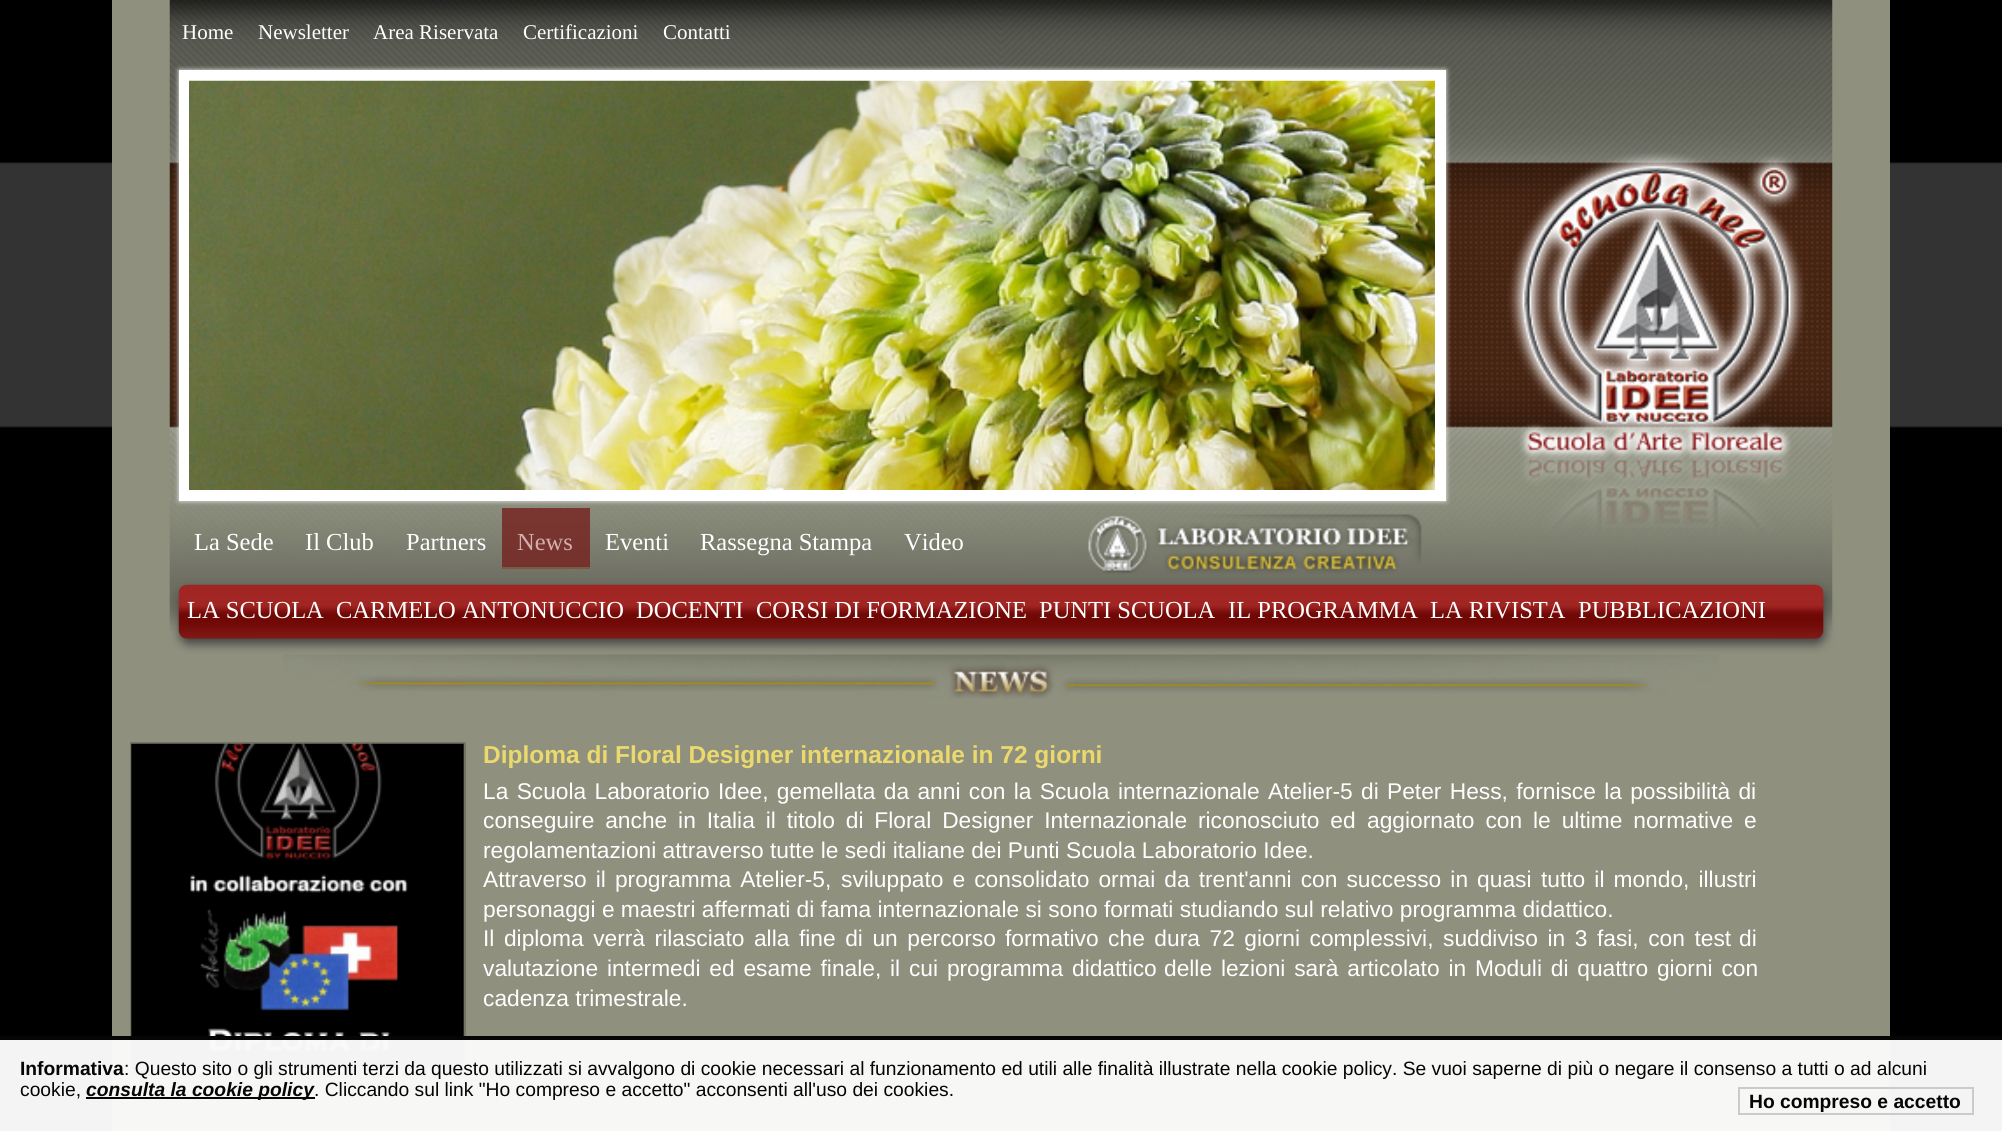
#include <cairo.h>
#include <math.h>
#include <stddef.h>

typedef struct { double x, y; const char *s; } line_t;

static void ink(cairo_t *ctx, unsigned color) {
    cairo_set_source_rgb(ctx, (color >> 16) / 255.0, (color >> 8 & 255) / 255.0, (color & 255) / 255.0);
}

static void write_spaced(cairo_t *ctx, double x, double y, const char *s, double letter, double word) {
    cairo_move_to(ctx, x, y);
    while (*s) {
        char ch[5] = {0};
        int n = 0;
        do ch[n++] = *s++; while ((*s & 0xC0) == 0x80);
        cairo_show_text(ctx, ch);
        cairo_rel_move_to(ctx, letter + word * (*ch == ' '), 0);
    }
}

static void round_path(cairo_t *ctx, double x, double y, double w, double h, double r) {
    cairo_new_sub_path(ctx);
    cairo_arc(ctx, x + w - r, y + h - r, r, 0, M_PI / 2);
    cairo_arc(ctx, x + r, y + h - r, r, M_PI / 2, M_PI);
    cairo_arc(ctx, x + r, y + r, r, M_PI, 1.5 * M_PI);
    cairo_arc(ctx, x + w - r, y + r, r, 1.5 * M_PI, 2 * M_PI);
    cairo_close_path(ctx);
}

static void blur_box(cairo_t *ctx, double x, double y, double w, double h, double r, double blur, double alpha) {
    cairo_push_group_with_content(ctx, CAIRO_CONTENT_ALPHA);
    cairo_set_operator(ctx, CAIRO_OPERATOR_SOURCE);
    for (int i = 15; i >= -15 && fmin(w, h) + blur * i / 3 > 0; i -= 2) {
        double e = blur * i / 6;
        cairo_set_source_rgba(ctx, 0, 0, 0, alpha * erfc((i - 1) / 8.5) / 2);
        round_path(ctx, x - e, y - e, w + 2 * e, h + 2 * e, fmax(0, fmin(r + e + blur * .6, fmin(w, h) / 2 + e)));
        cairo_fill(ctx);
    }
    cairo_pattern_t *soft = cairo_pop_group(ctx);
    cairo_mask(ctx, soft);
    cairo_pattern_destroy(soft);
}

static void paste(cairo_t *ctx, const char *path, double x, double y, double w, double h) {
    cairo_surface_t *image = cairo_image_surface_create_from_png(path);
    cairo_save(ctx);
    cairo_set_source_surface(ctx, image, x, y);
    cairo_rectangle(ctx, x, y, w, h);
    cairo_fill(ctx);
    cairo_restore(ctx);
    cairo_surface_destroy(image);
}

int main(void) {
    cairo_surface_t *surface = cairo_image_surface_create(CAIRO_FORMAT_RGB24, 2002, 1131);
    cairo_t *ctx = cairo_create(surface);
    cairo_font_options_t *options = cairo_font_options_create();
    cairo_font_options_set_hint_metrics(options, CAIRO_HINT_METRICS_OFF);
    cairo_font_options_set_hint_style(options, CAIRO_HINT_STYLE_NONE);
    cairo_set_font_options(ctx, options);
    cairo_set_miter_limit(ctx, 4);
    ink(ctx, 0x000000);
    cairo_paint(ctx);
    paste(ctx, "media/1.png", 0, 162, 2002, 266);
    ink(ctx, 0x8F907E);
    cairo_rectangle(ctx, 112, 0, 1778, 1131);
    cairo_fill(ctx);
    paste(ctx, "media/2.png", 169, 0, 1664, 631);
    cairo_select_font_face(ctx, "Liberation Serif", CAIRO_FONT_SLANT_NORMAL, CAIRO_FONT_WEIGHT_NORMAL);
    cairo_set_font_size(ctx, 21);
    ink(ctx, 0xFFFFFF);
    {
        static const line_t items[] = {
            {182, 39, "Home"},
            {258, 39, "Newsletter"},
            {373, 39, "Area Riservata"},
            {523, 39, "Certificazioni"},
            {663, 39, "Contatti"},
        };
        for (size_t i = 0; i < sizeof items / sizeof *items; i++) {
            cairo_move_to(ctx, items[i].x, items[i].y);
            cairo_show_text(ctx, items[i].s);
        }
    }
    ink(ctx, 0xF0F0F0);
    blur_box(ctx, 179, 70, 1267, 431, 0, 2.5, 1);
    cairo_rectangle(ctx, 184.5, 75.5, 1256, 420);
    ink(ctx, 0xFFFFFF);
    cairo_set_line_width(ctx, 11);
    cairo_stroke(ctx);
    paste(ctx, "media/3.png", 189, 80, 1246, 410);
    cairo_set_font_size(ctx, 24.5);
    {
        static const line_t items[] = {
            {194, 550, "La Sede"},
            {305, 550, "Il Club"},
            {406, 550, "Partners"},
        };
        for (size_t i = 0; i < sizeof items / sizeof *items; i++) {
            cairo_move_to(ctx, items[i].x, items[i].y);
            cairo_show_text(ctx, items[i].s);
        }
    }
    cairo_set_source_rgba(ctx, 0.463, 0.129, 0.118, 0.8);
    cairo_rectangle(ctx, 502, 508, 88, 59);
    cairo_fill(ctx);
    ink(ctx, 0x765D3F);
    cairo_rectangle(ctx, 502, 567, 88, 2);
    cairo_fill(ctx);
    ink(ctx, 0xD4AEAD);
    cairo_move_to(ctx, 517, 550);
    cairo_show_text(ctx, "News");
    ink(ctx, 0xFFFFFF);
    {
        static const line_t items[] = {
            {605, 550, "Eventi"},
            {700, 550, "Rassegna Stampa"},
            {904, 550, "Video"},
        };
        for (size_t i = 0; i < sizeof items / sizeof *items; i++) {
            cairo_move_to(ctx, items[i].x, items[i].y);
            cairo_show_text(ctx, items[i].s);
        }
    }
    paste(ctx, "media/4.png", 1088, 514, 334, 60);
    paste(ctx, "media/6.png", 283, 654, 1436, 45);
    ink(ctx, 0x434343);
    blur_box(ctx, 180, 590, 1645, 54, 9, 5, 1);
    paste(ctx, "media/5.png", 178, 584, 1646, 55);
    ink(ctx, 0xFFFFFF);
    {
        static const line_t items[] = {
            {187, 618, "LA SCUOLA"},
            {336, 618, "CARMELO ANTONUCCIO"},
            {636, 618, "DOCENTI"},
            {756, 618, "CORSI DI FORMAZIONE"},
            {1039, 618, "PUNTI SCUOLA"},
            {1228, 618, "IL PROGRAMMA"},
            {1430, 618, "LA RIVISTA"},
            {1578, 618, "PUBBLICAZIONI"},
        };
        for (size_t i = 0; i < sizeof items / sizeof *items; i++) {
            cairo_move_to(ctx, items[i].x, items[i].y);
            cairo_show_text(ctx, items[i].s);
        }
    }
    cairo_rectangle(ctx, 131, 743, 334, 334);
    ink(ctx, 0x747565);
    cairo_set_line_width(ctx, 2);
    cairo_stroke(ctx);
    paste(ctx, "media/7.png", 131, 743, 333, 334);
    cairo_select_font_face(ctx, "Liberation Sans", CAIRO_FONT_SLANT_NORMAL, CAIRO_FONT_WEIGHT_BOLD);
    ink(ctx, 0xEBD96D);
    cairo_move_to(ctx, 483, 763);
    cairo_show_text(ctx, "Diploma di Floral Designer internazionale in 72 giorni");
    cairo_select_font_face(ctx, "Liberation Sans", CAIRO_FONT_SLANT_NORMAL, CAIRO_FONT_WEIGHT_NORMAL);
    cairo_set_font_size(ctx, 22.75);
    ink(ctx, 0xFFFFFF);
    write_spaced(ctx, 483, 799, "La Scuola Laboratorio Idee, gemellata da anni con la Scuola", 0, 2);
    write_spaced(ctx, 1118, 799, "internazionale Atelier-5 di Peter Hess, fornisce la possibilità di", 0, 2);
    write_spaced(ctx, 483, 828, "conseguire anche in Italia il titolo di Floral Designer Internazionale riconosciuto ed", 0, 4.6);
    write_spaced(ctx, 1367, 828, "aggiornato con le ultime normative e", 0, 4.6);
    cairo_move_to(ctx, 483, 858);
    cairo_show_text(ctx, "regolamentazioni attraverso tutte le sedi italiane dei Punti Scuola Laboratorio Idee.");
    {
        static const line_t items[] = {
            {483, 887, "Attraverso il programma Atelier-5,"},
            {841, 887, "sviluppato e consolidato ormai da trent'anni con successo in quasi"},
            {1541, 887, "tutto il mondo, illustri"},
        };
        for (size_t i = 0; i < sizeof items / sizeof *items; i++) {
            write_spaced(ctx, items[i].x, items[i].y, items[i].s, 0, 2.75);
        }
    }
    cairo_move_to(ctx, 483, 917);
    cairo_show_text(ctx, "personaggi e maestri affermati di fama internazionale si sono formati studiando sul relativo programma didattico.");
    write_spaced(ctx, 483, 946, "Il diploma verrà rilasciato alla fine di un percorso", 0, 3.25);
    write_spaced(ctx, 1005, 946, "formativo che dura 72 giorni complessivi, suddiviso in 3 fasi, con test", 0, 3.25);
    cairo_move_to(ctx, 1739, 946);
    cairo_show_text(ctx, "di");
    write_spaced(ctx, 483, 976, "valutazione intermedi ed esame finale, il cui programma didattico", 0, 2.5);
    write_spaced(ctx, 1164, 976, "delle lezioni sarà articolato in Moduli di quattro giorni con", 0, 2.5);
    cairo_move_to(ctx, 483, 1006);
    cairo_show_text(ctx, "cadenza trimestrale.");
    cairo_set_source_rgba(ctx, 0.976, 0.976, 0.976, 0.98);
    cairo_rectangle(ctx, 0, 1036, 2002, 95);
    cairo_fill(ctx);
    cairo_set_source_rgba(ctx, 0, 0, 0, 0.98);
    cairo_rectangle(ctx, 0, 1036, 2002, 4);
    cairo_fill(ctx);
    cairo_select_font_face(ctx, "Liberation Sans", CAIRO_FONT_SLANT_NORMAL, CAIRO_FONT_WEIGHT_BOLD);
    cairo_set_font_size(ctx, 19.25);
    ink(ctx, 0x050505);
    cairo_move_to(ctx, 20, 1075);
    cairo_show_text(ctx, "Informativa");
    cairo_select_font_face(ctx, "Liberation Sans", CAIRO_FONT_SLANT_NORMAL, CAIRO_FONT_WEIGHT_NORMAL);
    cairo_move_to(ctx, 124, 1075);
    cairo_show_text(ctx, ": Questo sito o gli strumenti terzi da questo utilizzati si avvalgono di cookie necessari al funzionamento ed utili alle finalità illustrate nella cookie policy. Se vuoi saperne di più o negare il consenso a tutti o ad alcuni");
    cairo_move_to(ctx, 20, 1096);
    cairo_show_text(ctx, "cookie,");
    cairo_set_source_rgba(ctx, 0, 0, 0, 0.98);
    cairo_rectangle(ctx, 86, 1097, 229, 2);
    cairo_fill(ctx);
    cairo_select_font_face(ctx, "Liberation Sans", CAIRO_FONT_SLANT_ITALIC, CAIRO_FONT_WEIGHT_BOLD);
    ink(ctx, 0x050505);
    cairo_move_to(ctx, 86, 1096);
    cairo_show_text(ctx, "consulta la cookie policy");
    cairo_select_font_face(ctx, "Liberation Sans", CAIRO_FONT_SLANT_NORMAL, CAIRO_FONT_WEIGHT_NORMAL);
    cairo_move_to(ctx, 314, 1096);
    cairo_show_text(ctx, ". Cliccando sul link \"Ho compreso e accetto\" acconsenti all'uso dei cookies.");
    cairo_rectangle(ctx, 1739, 1088, 234, 26);
    cairo_set_source_rgba(ctx, 0.792, 0.792, 0.808, 0.98);
    cairo_stroke(ctx);
    cairo_select_font_face(ctx, "Liberation Sans", CAIRO_FONT_SLANT_NORMAL, CAIRO_FONT_WEIGHT_BOLD);
    ink(ctx, 0x050505);
    cairo_move_to(ctx, 1749, 1108);
    cairo_show_text(ctx, "Ho compreso e accetto");
    cairo_surface_write_to_png(surface, "image.png");
    cairo_font_options_destroy(options);
    cairo_destroy(ctx);
    cairo_surface_destroy(surface);
    return 0;
}
